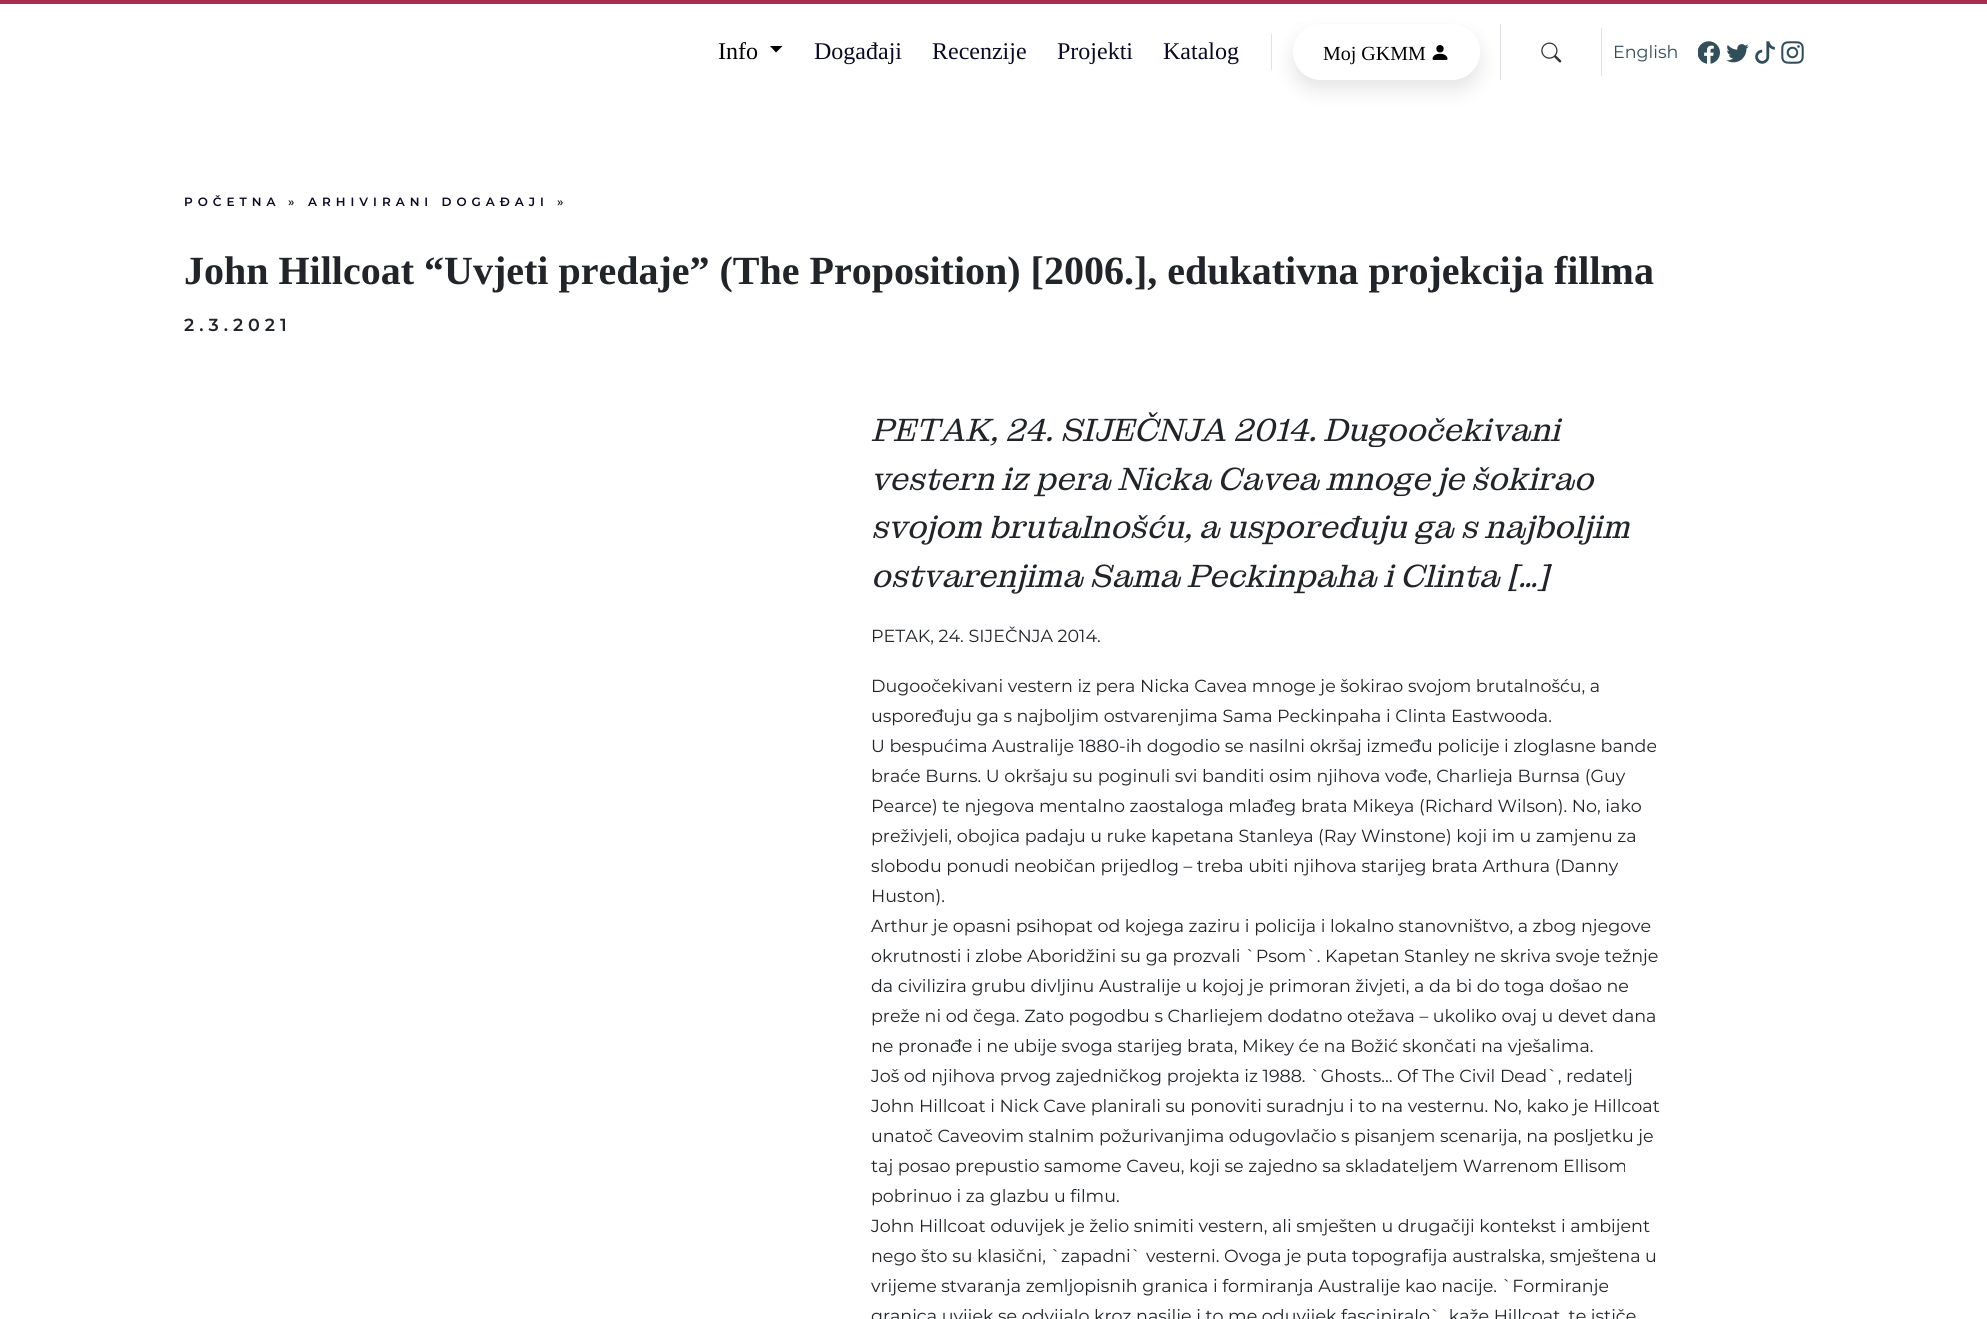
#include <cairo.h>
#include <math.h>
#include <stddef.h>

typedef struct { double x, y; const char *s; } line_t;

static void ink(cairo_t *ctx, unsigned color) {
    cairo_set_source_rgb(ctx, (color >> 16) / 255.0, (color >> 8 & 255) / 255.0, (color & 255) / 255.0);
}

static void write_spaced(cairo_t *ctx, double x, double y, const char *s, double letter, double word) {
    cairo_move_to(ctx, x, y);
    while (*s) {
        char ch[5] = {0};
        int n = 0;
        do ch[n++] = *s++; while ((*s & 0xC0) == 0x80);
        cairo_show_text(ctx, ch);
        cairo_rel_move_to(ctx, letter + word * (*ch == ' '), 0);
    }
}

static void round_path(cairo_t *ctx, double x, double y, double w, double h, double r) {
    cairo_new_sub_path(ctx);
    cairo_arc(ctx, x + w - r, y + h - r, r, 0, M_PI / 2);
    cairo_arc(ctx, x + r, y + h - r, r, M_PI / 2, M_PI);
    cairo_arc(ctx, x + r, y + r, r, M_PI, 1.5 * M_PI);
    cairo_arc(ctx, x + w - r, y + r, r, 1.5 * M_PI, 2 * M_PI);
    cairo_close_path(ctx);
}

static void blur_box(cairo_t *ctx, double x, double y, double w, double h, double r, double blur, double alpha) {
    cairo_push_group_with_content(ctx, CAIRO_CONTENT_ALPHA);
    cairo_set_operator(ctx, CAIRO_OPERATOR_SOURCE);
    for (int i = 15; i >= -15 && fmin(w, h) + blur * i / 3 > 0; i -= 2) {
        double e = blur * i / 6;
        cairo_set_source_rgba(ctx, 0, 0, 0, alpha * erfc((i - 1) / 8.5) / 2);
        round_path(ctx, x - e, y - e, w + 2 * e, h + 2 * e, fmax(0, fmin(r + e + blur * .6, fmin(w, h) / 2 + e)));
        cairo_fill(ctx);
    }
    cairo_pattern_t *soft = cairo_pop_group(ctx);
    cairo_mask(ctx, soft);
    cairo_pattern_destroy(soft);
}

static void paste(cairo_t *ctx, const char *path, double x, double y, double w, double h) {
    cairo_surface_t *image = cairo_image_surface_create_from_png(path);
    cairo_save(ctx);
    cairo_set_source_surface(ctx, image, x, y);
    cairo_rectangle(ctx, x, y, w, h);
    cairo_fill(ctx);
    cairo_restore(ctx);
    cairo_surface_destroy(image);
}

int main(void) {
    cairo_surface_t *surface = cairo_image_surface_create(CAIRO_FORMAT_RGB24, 1987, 1319);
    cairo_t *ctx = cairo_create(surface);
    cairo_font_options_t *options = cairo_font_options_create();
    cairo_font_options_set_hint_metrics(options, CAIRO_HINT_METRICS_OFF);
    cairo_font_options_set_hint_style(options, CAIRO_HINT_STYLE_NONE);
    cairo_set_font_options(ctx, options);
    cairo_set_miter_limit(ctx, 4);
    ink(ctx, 0xFFFFFF);
    cairo_paint(ctx);
    ink(ctx, 0xA72D51);
    cairo_rectangle(ctx, 0, 0, 1987, 4);
    cairo_fill(ctx);
    cairo_select_font_face(ctx, "Liberation Serif", CAIRO_FONT_SLANT_NORMAL, CAIRO_FONT_WEIGHT_NORMAL);
    cairo_set_font_size(ctx, 24);
    ink(ctx, 0x000000);
    cairo_move_to(ctx, 718, 59);
    cairo_show_text(ctx, "Info");
    cairo_new_path(ctx);
    cairo_move_to(ctx, 770, 46);
    cairo_line_to(ctx, 782.5, 46);
    cairo_line_to(ctx, 776, 52.5);
    cairo_close_path(ctx);
    cairo_fill(ctx);
    ink(ctx, 0xDEE2E6);
    cairo_rectangle(ctx, 1271, 34, 1, 36);
    cairo_fill(ctx);
    ink(ctx, 0x0A0A24);
    {
        static const line_t items[] = {
            {814, 59, "Događaji"},
            {932, 59, "Recenzije"},
            {1057, 59, "Projekti"},
            {1163, 59, "Katalog"},
        };
        for (size_t i = 0; i < sizeof items / sizeof *items; i++) {
            cairo_move_to(ctx, items[i].x, items[i].y);
            cairo_show_text(ctx, items[i].s);
        }
    }
    ink(ctx, 0xDEE2E6);
    cairo_rectangle(ctx, 1500, 24, 1, 56);
    cairo_fill(ctx);
    ink(ctx, 0x000000);
    blur_box(ctx, 1293, 34, 187, 56, 28, 9.5, 0.1);
    ink(ctx, 0xFFFFFF);
    round_path(ctx, 1293, 24, 187, 56, 28);
    cairo_fill(ctx);
    cairo_set_font_size(ctx, 20);
    ink(ctx, 0x000000);
    cairo_move_to(ctx, 1323, 60);
    cairo_show_text(ctx, "Moj GKMM");
    paste(ctx, "media/1.png", 1432, 45, 16, 15);
    ink(ctx, 0xDEE2E6);
    cairo_rectangle(ctx, 1601, 28, 1, 48);
    cairo_fill(ctx);
    paste(ctx, "media/2.png", 1541, 42, 21, 21);
    cairo_select_font_face(ctx, "Montserrat", CAIRO_FONT_SLANT_NORMAL, CAIRO_FONT_WEIGHT_NORMAL);
    cairo_set_font_size(ctx, 17.5);
    ink(ctx, 0x324E5B);
    cairo_move_to(ctx, 1613, 58);
    cairo_show_text(ctx, "English");
    paste(ctx, "media/3.png", 1698, 41, 22, 23);
    paste(ctx, "media/4.png", 1726, 44, 23, 19);
    paste(ctx, "media/5.png", 1755, 41, 20, 23);
    paste(ctx, "media/6.png", 1781, 41, 23, 23);
    cairo_select_font_face(ctx, "Montserrat SemiBold", CAIRO_FONT_SLANT_NORMAL, CAIRO_FONT_WEIGHT_NORMAL);
    cairo_set_font_size(ctx, 12);
    ink(ctx, 0x0A0A24);
    write_spaced(ctx, 184, 206, "POČETNA", 5, 0);
    ink(ctx, 0x212529);
    write_spaced(ctx, 288, 206, "»", 5, 0);
    ink(ctx, 0x0A0A24);
    write_spaced(ctx, 308, 206, "ARHIVIRANI DOGAĐAJI", 5, 0);
    ink(ctx, 0x212529);
    write_spaced(ctx, 557, 206, "»", 5, 0);
    cairo_select_font_face(ctx, "Liberation Serif", CAIRO_FONT_SLANT_NORMAL, CAIRO_FONT_WEIGHT_BOLD);
    cairo_set_font_size(ctx, 40);
    cairo_move_to(ctx, 184, 284);
    cairo_show_text(ctx, "John Hillcoat “Uvjeti predaje” (The Proposition) [2006.], edukativna projekcija fillma");
    cairo_select_font_face(ctx, "Montserrat SemiBold", CAIRO_FONT_SLANT_NORMAL, CAIRO_FONT_WEIGHT_NORMAL);
    cairo_set_font_size(ctx, 17.5);
    write_spaced(ctx, 184, 331, "2.3.2021", 5, 0);
    cairo_select_font_face(ctx, "Montagu Slab", CAIRO_FONT_SLANT_ITALIC, CAIRO_FONT_WEIGHT_NORMAL);
    cairo_set_font_size(ctx, 32.5);
    {
        static const line_t items[] = {
            {871, 441, "PETAK, 24. SIJEČNJA 2014. Dugoočekivani"},
            {871, 490, "vestern iz pera Nicka Cavea mnoge je šokirao"},
            {871, 538, "svojom brutalnošću, a uspoređuju ga s najboljim"},
            {871, 587, "ostvarenjima Sama Peckinpaha i Clinta […]"},
        };
        for (size_t i = 0; i < sizeof items / sizeof *items; i++) {
            cairo_move_to(ctx, items[i].x, items[i].y);
            cairo_show_text(ctx, items[i].s);
        }
    }
    cairo_select_font_face(ctx, "Montserrat", CAIRO_FONT_SLANT_NORMAL, CAIRO_FONT_WEIGHT_NORMAL);
    cairo_set_font_size(ctx, 17.5);
    {
        static const line_t items[] = {
            {871, 642, "PETAK, 24. SIJEČNJA 2014."},
            {871, 692, "Dugoočekivani vestern iz pera Nicka Cavea mnoge je šokirao svojom brutalnošću, a"},
            {871, 722, "uspoređuju ga s najboljim ostvarenjima Sama Peckinpaha i Clinta Eastwooda."},
            {871, 752, "U bespućima Australije 1880-ih dogodio se nasilni okršaj između policije i zloglasne bande"},
            {871, 782, "braće Burns. U okršaju su poginuli svi banditi osim njihova vođe, Charlieja Burnsa (Guy"},
            {871, 812, "Pearce) te njegova mentalno zaostaloga mlađeg brata Mikeya (Richard Wilson). No, iako"},
            {871, 842, "preživjeli, obojica padaju u ruke kapetana Stanleya (Ray Winstone) koji im u zamjenu za"},
            {871, 872, "slobodu ponudi neobičan prijedlog – treba ubiti njihova starijeg brata Arthura (Danny"},
            {871, 902, "Huston)."},
            {871, 932, "Arthur je opasni psihopat od kojega zaziru i policija i lokalno stanovništvo, a zbog njegove"},
            {871, 962, "okrutnosti i zlobe Aboridžini su ga prozvali `Psom`. Kapetan Stanley ne skriva svoje težnje"},
            {871, 992, "da civilizira grubu divljinu Australije u kojoj je primoran živjeti, a da bi do toga došao ne"},
            {871, 1022, "preže ni od čega. Zato pogodbu s Charliejem dodatno otežava – ukoliko ovaj u devet dana"},
            {871, 1052, "ne pronađe i ne ubije svoga starijeg brata, Mikey će na Božić skončati na vješalima."},
            {871, 1082, "Još od njihova prvog zajedničkog projekta iz 1988. `Ghosts… Of The Civil Dead`, redatelj"},
            {871, 1112, "John Hillcoat i Nick Cave planirali su ponoviti suradnju i to na vesternu. No, kako je Hillcoat"},
            {871, 1142, "unatoč Caveovim stalnim požurivanjima odugovlačio s pisanjem scenarija, na posljetku je"},
            {871, 1172, "taj posao prepustio samome Caveu, koji se zajedno sa skladateljem Warrenom Ellisom"},
            {871, 1202, "pobrinuo i za glazbu u filmu."},
            {871, 1232, "John Hillcoat oduvijek je želio snimiti vestern, ali smješten u drugačiji kontekst i ambijent"},
            {871, 1262, "nego što su klasični, `zapadni` vesterni. Ovoga je puta topografija australska, smještena u"},
            {871, 1292, "vrijeme stvaranja zemljopisnih granica i formiranja Australije kao nacije. `Formiranje"},
            {871, 1322, "granica uvijek se odvijalo kroz nasilje i to me oduvijek fasciniralo`, kaže Hillcoat, te ističe"},
        };
        for (size_t i = 0; i < sizeof items / sizeof *items; i++) {
            cairo_move_to(ctx, items[i].x, items[i].y);
            cairo_show_text(ctx, items[i].s);
        }
    }
    cairo_surface_write_to_png(surface, "image.png");
    cairo_font_options_destroy(options);
    cairo_destroy(ctx);
    cairo_surface_destroy(surface);
    return 0;
}
